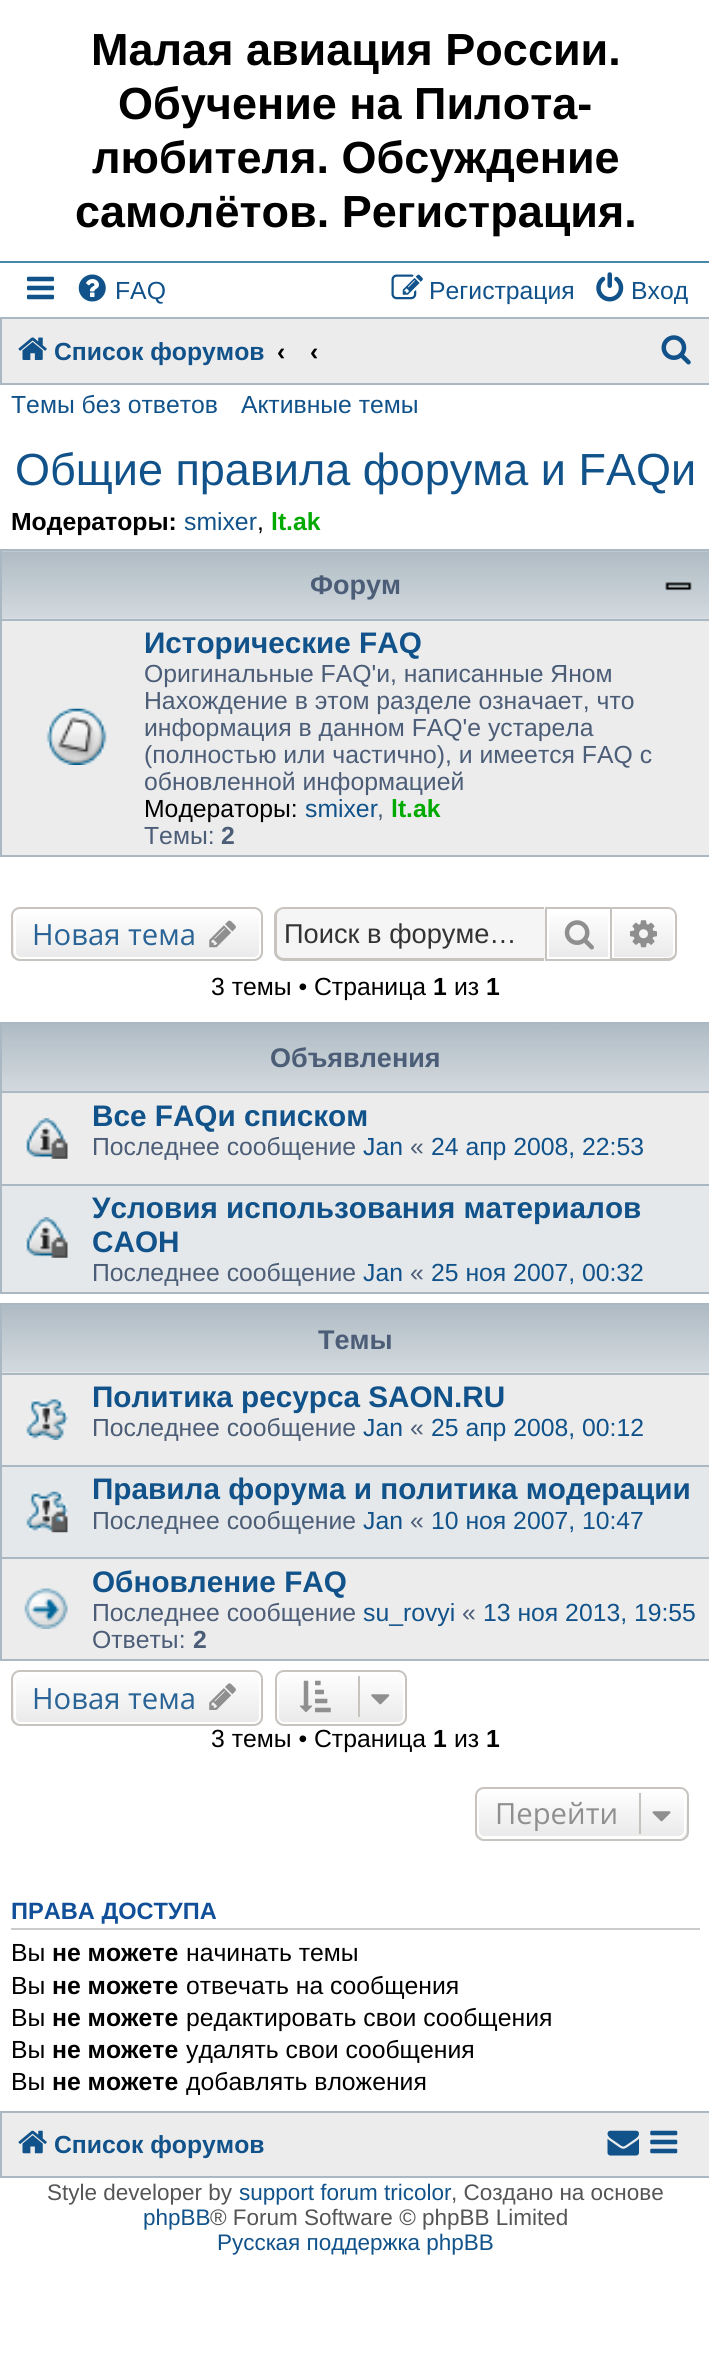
#include <cairo.h>
#include <math.h>
#include <stddef.h>

typedef struct { double x, y; const char *s; } line_t;

static void ink(cairo_t *ctx, unsigned color) {
    cairo_set_source_rgb(ctx, (color >> 16) / 255.0, (color >> 8 & 255) / 255.0, (color & 255) / 255.0);
}

static void round_path(cairo_t *ctx, double x, double y, double w, double h, double r) {
    cairo_new_sub_path(ctx);
    cairo_arc(ctx, x + w - r, y + h - r, r, 0, M_PI / 2);
    cairo_arc(ctx, x + r, y + h - r, r, M_PI / 2, M_PI);
    cairo_arc(ctx, x + r, y + r, r, M_PI, 1.5 * M_PI);
    cairo_arc(ctx, x + w - r, y + r, r, 1.5 * M_PI, 2 * M_PI);
    cairo_close_path(ctx);
}

static void paste(cairo_t *ctx, const char *path, double x, double y, double w, double h) {
    cairo_surface_t *image = cairo_image_surface_create_from_png(path);
    cairo_save(ctx);
    cairo_set_source_surface(ctx, image, x, y);
    cairo_rectangle(ctx, x, y, w, h);
    cairo_fill(ctx);
    cairo_restore(ctx);
    cairo_surface_destroy(image);
}

int main(void) {
    cairo_surface_t *surface = cairo_image_surface_create(CAIRO_FORMAT_RGB24, 709, 2365);
    cairo_t *ctx = cairo_create(surface);
    cairo_font_options_t *options = cairo_font_options_create();
    cairo_font_options_set_hint_metrics(options, CAIRO_HINT_METRICS_OFF);
    cairo_font_options_set_hint_style(options, CAIRO_HINT_STYLE_NONE);
    cairo_set_font_options(ctx, options);
    cairo_set_miter_limit(ctx, 4);
    cairo_pattern_t *gradient;
    ink(ctx, 0xFFFFFF);
    cairo_paint(ctx);
    ink(ctx, 0x4787A7);
    cairo_rectangle(ctx, 0, 261, 709, 2);
    cairo_fill(ctx);
    cairo_select_font_face(ctx, "Liberation Sans", CAIRO_FONT_SLANT_NORMAL, CAIRO_FONT_WEIGHT_BOLD);
    cairo_set_font_size(ctx, 45);
    ink(ctx, 0x000000);
    {
        static const line_t items[] = {
            {91, 65, "Малая авиация России."},
            {118, 119, "Обучение на Пилота-"},
            {92, 173, "любителя. Обсуждение"},
            {75, 227, "самолётов. Регистрация."},
        };
        for (size_t i = 0; i < sizeof items / sizeof *items; i++) {
            cairo_move_to(ctx, items[i].x, items[i].y);
            cairo_show_text(ctx, items[i].s);
        }
    }
    paste(ctx, "media/1.png", 27, 276, 27, 24);
    paste(ctx, "media/2.png", 78, 274, 28, 28);
    cairo_select_font_face(ctx, "Liberation Sans", CAIRO_FONT_SLANT_NORMAL, CAIRO_FONT_WEIGHT_NORMAL);
    cairo_set_font_size(ctx, 24.75);
    ink(ctx, 0x105289);
    cairo_move_to(ctx, 115, 299);
    cairo_show_text(ctx, "FAQ");
    paste(ctx, "media/3.png", 391, 274, 32, 26);
    cairo_move_to(ctx, 429, 299);
    cairo_show_text(ctx, "Регистрация");
    paste(ctx, "media/4.png", 596, 272, 28, 30);
    cairo_move_to(ctx, 631, 299);
    cairo_show_text(ctx, "Вход");
    ink(ctx, 0xECECEC);
    cairo_rectangle(ctx, 1, 318, 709, 66);
    cairo_fill_preserve(ctx);
    ink(ctx, 0xA9B8C2);
    cairo_stroke(ctx);
    paste(ctx, "media/5.png", 18, 337, 29, 23);
    cairo_select_font_face(ctx, "Liberation Sans", CAIRO_FONT_SLANT_NORMAL, CAIRO_FONT_WEIGHT_BOLD);
    ink(ctx, 0x105289);
    cairo_move_to(ctx, 54, 360);
    cairo_show_text(ctx, "Список форумов");
    ink(ctx, 0x000000);
    cairo_move_to(ctx, 277, 360);
    cairo_show_text(ctx, "‹");
    cairo_move_to(ctx, 310, 360);
    cairo_show_text(ctx, "‹");
    paste(ctx, "media/6.png", 661, 335, 30, 30);
    cairo_select_font_face(ctx, "Liberation Sans", CAIRO_FONT_SLANT_NORMAL, CAIRO_FONT_WEIGHT_NORMAL);
    ink(ctx, 0x105289);
    cairo_move_to(ctx, 11, 413);
    cairo_show_text(ctx, "Темы без ответов");
    cairo_move_to(ctx, 241, 413);
    cairo_show_text(ctx, "Активные темы");
    cairo_set_font_size(ctx, 45);
    cairo_move_to(ctx, 15, 485);
    cairo_show_text(ctx, "Общие правила форума и FAQи");
    cairo_select_font_face(ctx, "Liberation Sans", CAIRO_FONT_SLANT_NORMAL, CAIRO_FONT_WEIGHT_BOLD);
    cairo_set_font_size(ctx, 24.75);
    ink(ctx, 0x000000);
    cairo_move_to(ctx, 11, 530);
    cairo_show_text(ctx, "Модераторы:");
    cairo_select_font_face(ctx, "Liberation Sans", CAIRO_FONT_SLANT_NORMAL, CAIRO_FONT_WEIGHT_NORMAL);
    ink(ctx, 0x105289);
    cairo_move_to(ctx, 184, 530);
    cairo_show_text(ctx, "smixer");
    ink(ctx, 0x000000);
    cairo_move_to(ctx, 257, 530);
    cairo_show_text(ctx, ",");
    cairo_select_font_face(ctx, "Liberation Sans", CAIRO_FONT_SLANT_NORMAL, CAIRO_FONT_WEIGHT_BOLD);
    ink(ctx, 0x00AA00);
    cairo_move_to(ctx, 271, 530);
    cairo_show_text(ctx, "lt.ak");
    ink(ctx, 0xECECEC);
    cairo_rectangle(ctx, 2, 551, 707, 304);
    cairo_fill(ctx);
    paste(ctx, "media/7.png", 2, 551, 707, 68);
    cairo_rectangle(ctx, 1, 550, 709, 306);
    ink(ctx, 0xA9B8C2);
    cairo_stroke(ctx);
    cairo_set_font_size(ctx, 27);
    ink(ctx, 0x4C5D77);
    cairo_move_to(ctx, 310, 594);
    cairo_show_text(ctx, "Форум");
    paste(ctx, "media/8.png", 665, 582, 27, 9);
    ink(ctx, 0xA9B8C2);
    cairo_rectangle(ctx, 2, 619, 707, 2);
    cairo_fill(ctx);
    paste(ctx, "media/9.png", 46, 708, 61, 57);
    cairo_set_font_size(ctx, 29.7);
    ink(ctx, 0x105289);
    cairo_move_to(ctx, 144, 653);
    cairo_show_text(ctx, "Исторические FAQ");
    cairo_select_font_face(ctx, "Liberation Sans", CAIRO_FONT_SLANT_NORMAL, CAIRO_FONT_WEIGHT_NORMAL);
    cairo_set_font_size(ctx, 24.75);
    ink(ctx, 0x4C5D77);
    {
        static const line_t items[] = {
            {144, 682, "Оригинальные FAQ'и, написанные Яном"},
            {144, 709, "Нахождение в этом разделе означает, что"},
            {144, 736, "информация в данном FAQ'е устарела"},
            {144, 763, "(полностью или частично), и имеется FAQ с"},
            {144, 790, "обновленной информацией"},
        };
        for (size_t i = 0; i < sizeof items / sizeof *items; i++) {
            cairo_move_to(ctx, items[i].x, items[i].y);
            cairo_show_text(ctx, items[i].s);
        }
    }
    ink(ctx, 0x000000);
    cairo_move_to(ctx, 144, 817);
    cairo_show_text(ctx, "Модераторы:");
    ink(ctx, 0x105289);
    cairo_move_to(ctx, 305, 817);
    cairo_show_text(ctx, "smixer");
    ink(ctx, 0x4C5D77);
    cairo_move_to(ctx, 377, 817);
    cairo_show_text(ctx, ",");
    cairo_select_font_face(ctx, "Liberation Sans", CAIRO_FONT_SLANT_NORMAL, CAIRO_FONT_WEIGHT_BOLD);
    ink(ctx, 0x00AA00);
    cairo_move_to(ctx, 391, 817);
    cairo_show_text(ctx, "lt.ak");
    cairo_select_font_face(ctx, "Liberation Sans", CAIRO_FONT_SLANT_NORMAL, CAIRO_FONT_WEIGHT_NORMAL);
    ink(ctx, 0x4C5D77);
    cairo_move_to(ctx, 144, 844);
    cairo_show_text(ctx, "Темы:");
    cairo_select_font_face(ctx, "Liberation Sans", CAIRO_FONT_SLANT_NORMAL, CAIRO_FONT_WEIGHT_BOLD);
    cairo_move_to(ctx, 221, 844);
    cairo_show_text(ctx, "2");
    cairo_save(ctx);
    round_path(ctx, 11, 907, 252, 54, 9);
    cairo_clip(ctx);
    gradient = cairo_pattern_create_linear(137, 909, 137, 959);
    cairo_pattern_add_color_stop_rgba(gradient, 0, 1, 1, 1, 1);
    cairo_pattern_add_color_stop_rgba(gradient, 1, 0.914, 0.914, 0.914, 1);
    cairo_set_source(ctx, gradient);
    cairo_pattern_destroy(gradient);
    cairo_rectangle(ctx, 11, 909, 252, 50);
    cairo_fill(ctx);
    cairo_restore(ctx);
    round_path(ctx, 15, 910, 245, 48, 6);
    ink(ctx, 0xFFFFFF);
    cairo_stroke(ctx);
    round_path(ctx, 12, 908, 250, 52, 8);
    ink(ctx, 0xC7C3BF);
    cairo_stroke(ctx);
    cairo_select_font_face(ctx, "Open Sans", CAIRO_FONT_SLANT_NORMAL, CAIRO_FONT_WEIGHT_NORMAL);
    cairo_set_font_size(ctx, 29.25);
    ink(ctx, 0x2A6496);
    cairo_move_to(ctx, 32, 945);
    cairo_show_text(ctx, "Новая тема");
    paste(ctx, "media/10.png", 209, 920, 27, 28);
    ink(ctx, 0xF5F5F5);
    cairo_new_path(ctx);
    cairo_move_to(ctx, 284, 909);
    cairo_line_to(ctx, 545, 909);
    cairo_line_to(ctx, 545, 959);
    cairo_line_to(ctx, 284, 959);
    cairo_curve_to(ctx, 280, 959, 277, 956, 277, 952);
    cairo_line_to(ctx, 277, 916);
    cairo_curve_to(ctx, 277, 912, 280, 909, 284, 909);
    cairo_close_path(ctx);
    cairo_fill(ctx);
    ink(ctx, 0xC7C3BF);
    cairo_set_fill_rule(ctx, CAIRO_FILL_RULE_EVEN_ODD);
    cairo_new_path(ctx);
    cairo_move_to(ctx, 284, 907);
    cairo_line_to(ctx, 544, 907);
    cairo_line_to(ctx, 544, 961);
    cairo_line_to(ctx, 284, 961);
    cairo_curve_to(ctx, 279, 961, 274, 957, 274, 952);
    cairo_line_to(ctx, 274, 916);
    cairo_curve_to(ctx, 274, 911, 279, 907, 284, 907);
    cairo_close_path(ctx);
    cairo_move_to(ctx, 284, 909);
    cairo_line_to(ctx, 544, 909);
    cairo_line_to(ctx, 544, 958);
    cairo_line_to(ctx, 284, 958);
    cairo_curve_to(ctx, 280, 958, 277, 955, 277, 952);
    cairo_line_to(ctx, 277, 916);
    cairo_curve_to(ctx, 277, 912, 280, 909, 284, 909);
    cairo_close_path(ctx);
    cairo_fill(ctx);
    cairo_select_font_face(ctx, "Liberation Sans", CAIRO_FONT_SLANT_NORMAL, CAIRO_FONT_WEIGHT_NORMAL);
    cairo_set_font_size(ctx, 27.25);
    ink(ctx, 0x333333);
    cairo_move_to(ctx, 284, 943);
    cairo_show_text(ctx, "Поиск в форуме…");
    gradient = cairo_pattern_create_linear(578, 909, 578, 959);
    cairo_pattern_add_color_stop_rgba(gradient, 0, 1, 1, 1, 1);
    cairo_pattern_add_color_stop_rgba(gradient, 1, 0.914, 0.914, 0.914, 1);
    cairo_set_source(ctx, gradient);
    cairo_pattern_destroy(gradient);
    cairo_rectangle(ctx, 549, 915, 59, 42);
    cairo_fill(ctx);
    cairo_rectangle(ctx, 546, 908, 65, 52);
    ink(ctx, 0xC7C3BF);
    cairo_stroke(ctx);
    paste(ctx, "media/11.png", 564, 920, 30, 30);
    gradient = cairo_pattern_create_linear(644, 909, 644, 959);
    cairo_pattern_add_color_stop_rgba(gradient, 0, 1, 1, 1, 1);
    cairo_pattern_add_color_stop_rgba(gradient, 1, 0.914, 0.914, 0.914, 1);
    cairo_set_source(ctx, gradient);
    cairo_pattern_destroy(gradient);
    cairo_new_path(ctx);
    cairo_move_to(ctx, 613, 910);
    cairo_line_to(ctx, 668, 910);
    cairo_curve_to(ctx, 671.5, 910, 674, 912.5, 674, 916);
    cairo_line_to(ctx, 674, 952);
    cairo_curve_to(ctx, 674, 955.5, 671.5, 958, 668, 958);
    cairo_line_to(ctx, 613, 958);
    cairo_close_path(ctx);
    cairo_fill_preserve(ctx);
    ink(ctx, 0xFFFFFF);
    cairo_stroke(ctx);
    ink(ctx, 0xC7C3BF);
    cairo_new_path(ctx);
    cairo_move_to(ctx, 612, 907);
    cairo_line_to(ctx, 668, 907);
    cairo_curve_to(ctx, 673, 907, 677, 911, 677, 916);
    cairo_line_to(ctx, 677, 952);
    cairo_curve_to(ctx, 677, 957, 673, 961, 668, 961);
    cairo_line_to(ctx, 612, 961);
    cairo_close_path(ctx);
    cairo_move_to(ctx, 612, 909);
    cairo_line_to(ctx, 668, 909);
    cairo_curve_to(ctx, 672, 909, 675, 912, 675, 916);
    cairo_line_to(ctx, 675, 952);
    cairo_curve_to(ctx, 675, 955, 672, 958, 668, 958);
    cairo_line_to(ctx, 612, 958);
    cairo_close_path(ctx);
    cairo_fill(ctx);
    paste(ctx, "media/12.png", 630, 920, 27, 28);
    cairo_set_font_size(ctx, 24.75);
    ink(ctx, 0x000000);
    cairo_move_to(ctx, 211, 995);
    cairo_show_text(ctx, "3 темы • Страница");
    cairo_select_font_face(ctx, "Liberation Sans", CAIRO_FONT_SLANT_NORMAL, CAIRO_FONT_WEIGHT_BOLD);
    cairo_move_to(ctx, 433, 995);
    cairo_show_text(ctx, "1");
    cairo_select_font_face(ctx, "Liberation Sans", CAIRO_FONT_SLANT_NORMAL, CAIRO_FONT_WEIGHT_NORMAL);
    cairo_move_to(ctx, 454, 995);
    cairo_show_text(ctx, "из");
    cairo_select_font_face(ctx, "Liberation Sans", CAIRO_FONT_SLANT_NORMAL, CAIRO_FONT_WEIGHT_BOLD);
    cairo_move_to(ctx, 486, 995);
    cairo_show_text(ctx, "1");
    paste(ctx, "media/13.png", 2, 1024, 707, 67);
    cairo_rectangle(ctx, 1, 1023, 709, 270);
    ink(ctx, 0xA9B8C2);
    cairo_stroke(ctx);
    cairo_set_font_size(ctx, 27);
    ink(ctx, 0x4C5D77);
    cairo_move_to(ctx, 270, 1067);
    cairo_show_text(ctx, "Объявления");
    ink(ctx, 0xECECEC);
    cairo_rectangle(ctx, 2, 1093, 707, 91);
    cairo_fill(ctx);
    ink(ctx, 0xA9B8C2);
    cairo_rectangle(ctx, 2, 1091, 707, 2);
    cairo_fill(ctx);
    paste(ctx, "media/14.png", 25, 1118, 43, 41);
    cairo_set_font_size(ctx, 29.7);
    ink(ctx, 0x105289);
    cairo_move_to(ctx, 92, 1126);
    cairo_show_text(ctx, "Все FAQи списком");
    cairo_select_font_face(ctx, "Liberation Sans", CAIRO_FONT_SLANT_NORMAL, CAIRO_FONT_WEIGHT_NORMAL);
    cairo_set_font_size(ctx, 24.75);
    ink(ctx, 0x4C5D77);
    cairo_move_to(ctx, 92, 1155);
    cairo_show_text(ctx, "Последнее сообщение");
    ink(ctx, 0x105289);
    cairo_move_to(ctx, 363, 1155);
    cairo_show_text(ctx, "Jan");
    ink(ctx, 0x4C5D77);
    cairo_move_to(ctx, 410, 1155);
    cairo_show_text(ctx, "«");
    ink(ctx, 0x105289);
    cairo_move_to(ctx, 431, 1155);
    cairo_show_text(ctx, "24 апр 2008, 22:53");
    ink(ctx, 0xE5E8EA);
    cairo_rectangle(ctx, 2, 1186, 707, 106);
    cairo_fill(ctx);
    ink(ctx, 0xA9B8C2);
    cairo_rectangle(ctx, 2, 1184, 707, 2);
    cairo_fill(ctx);
    paste(ctx, "media/15.png", 25, 1217, 43, 41);
    cairo_select_font_face(ctx, "Liberation Sans", CAIRO_FONT_SLANT_NORMAL, CAIRO_FONT_WEIGHT_BOLD);
    cairo_set_font_size(ctx, 29.7);
    ink(ctx, 0x105289);
    cairo_move_to(ctx, 92, 1218);
    cairo_show_text(ctx, "Условия использования материалов");
    cairo_move_to(ctx, 92, 1252);
    cairo_show_text(ctx, "САОН");
    cairo_select_font_face(ctx, "Liberation Sans", CAIRO_FONT_SLANT_NORMAL, CAIRO_FONT_WEIGHT_NORMAL);
    cairo_set_font_size(ctx, 24.75);
    ink(ctx, 0x4C5D77);
    cairo_move_to(ctx, 92, 1281);
    cairo_show_text(ctx, "Последнее сообщение");
    ink(ctx, 0x105289);
    cairo_move_to(ctx, 363, 1281);
    cairo_show_text(ctx, "Jan");
    ink(ctx, 0x4C5D77);
    cairo_move_to(ctx, 410, 1281);
    cairo_show_text(ctx, "«");
    ink(ctx, 0x105289);
    cairo_move_to(ctx, 431, 1281);
    cairo_show_text(ctx, "25 ноя 2007, 00:32");
    ink(ctx, 0xECECEC);
    cairo_rectangle(ctx, 2, 1372, 707, 287);
    cairo_fill(ctx);
    paste(ctx, "media/16.png", 2, 1305, 707, 68);
    cairo_rectangle(ctx, 1, 1304, 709, 356);
    ink(ctx, 0xA9B8C2);
    cairo_stroke(ctx);
    cairo_select_font_face(ctx, "Liberation Sans", CAIRO_FONT_SLANT_NORMAL, CAIRO_FONT_WEIGHT_BOLD);
    cairo_set_font_size(ctx, 27);
    ink(ctx, 0x4C5D77);
    cairo_move_to(ctx, 318, 1349);
    cairo_show_text(ctx, "Темы");
    ink(ctx, 0xA9B8C2);
    cairo_rectangle(ctx, 2, 1373, 707, 2);
    cairo_fill(ctx);
    paste(ctx, "media/17.png", 26, 1399, 42, 41);
    cairo_set_font_size(ctx, 29.7);
    ink(ctx, 0x105289);
    cairo_move_to(ctx, 92, 1407);
    cairo_show_text(ctx, "Политика ресурса SAON.RU");
    cairo_select_font_face(ctx, "Liberation Sans", CAIRO_FONT_SLANT_NORMAL, CAIRO_FONT_WEIGHT_NORMAL);
    cairo_set_font_size(ctx, 24.75);
    ink(ctx, 0x4C5D77);
    cairo_move_to(ctx, 92, 1436);
    cairo_show_text(ctx, "Последнее сообщение");
    ink(ctx, 0x105289);
    cairo_move_to(ctx, 363, 1436);
    cairo_show_text(ctx, "Jan");
    ink(ctx, 0x4C5D77);
    cairo_move_to(ctx, 410, 1436);
    cairo_show_text(ctx, "«");
    ink(ctx, 0x105289);
    cairo_move_to(ctx, 431, 1436);
    cairo_show_text(ctx, "25 апр 2008, 00:12");
    ink(ctx, 0xE5E8EA);
    cairo_rectangle(ctx, 2, 1467, 707, 90);
    cairo_fill(ctx);
    ink(ctx, 0xA9B8C2);
    cairo_rectangle(ctx, 2, 1465, 707, 2);
    cairo_fill(ctx);
    paste(ctx, "media/18.png", 26, 1491, 42, 42);
    cairo_select_font_face(ctx, "Liberation Sans", CAIRO_FONT_SLANT_NORMAL, CAIRO_FONT_WEIGHT_BOLD);
    cairo_set_font_size(ctx, 29.7);
    ink(ctx, 0x105289);
    cairo_move_to(ctx, 92, 1499);
    cairo_show_text(ctx, "Правила форума и политика модерации");
    cairo_select_font_face(ctx, "Liberation Sans", CAIRO_FONT_SLANT_NORMAL, CAIRO_FONT_WEIGHT_NORMAL);
    cairo_set_font_size(ctx, 24.75);
    ink(ctx, 0x4C5D77);
    cairo_move_to(ctx, 92, 1529);
    cairo_show_text(ctx, "Последнее сообщение");
    ink(ctx, 0x105289);
    cairo_move_to(ctx, 363, 1529);
    cairo_show_text(ctx, "Jan");
    ink(ctx, 0x4C5D77);
    cairo_move_to(ctx, 410, 1529);
    cairo_show_text(ctx, "«");
    ink(ctx, 0x105289);
    cairo_move_to(ctx, 431, 1529);
    cairo_show_text(ctx, "10 ноя 2007, 10:47");
    ink(ctx, 0xA9B8C2);
    cairo_rectangle(ctx, 2, 1557, 707, 2);
    cairo_fill(ctx);
    paste(ctx, "media/19.png", 24, 1588, 44, 41);
    cairo_select_font_face(ctx, "Liberation Sans", CAIRO_FONT_SLANT_NORMAL, CAIRO_FONT_WEIGHT_BOLD);
    cairo_set_font_size(ctx, 29.7);
    ink(ctx, 0x105289);
    cairo_move_to(ctx, 92, 1592);
    cairo_show_text(ctx, "Обновление FAQ");
    cairo_select_font_face(ctx, "Liberation Sans", CAIRO_FONT_SLANT_NORMAL, CAIRO_FONT_WEIGHT_NORMAL);
    cairo_set_font_size(ctx, 24.75);
    ink(ctx, 0x4C5D77);
    cairo_move_to(ctx, 92, 1621);
    cairo_show_text(ctx, "Последнее сообщение");
    ink(ctx, 0x105289);
    cairo_move_to(ctx, 363, 1621);
    cairo_show_text(ctx, "su_rovyi");
    ink(ctx, 0x4C5D77);
    cairo_move_to(ctx, 462, 1621);
    cairo_show_text(ctx, "«");
    ink(ctx, 0x105289);
    cairo_move_to(ctx, 483, 1621);
    cairo_show_text(ctx, "13 ноя 2013, 19:55");
    ink(ctx, 0x4C5D77);
    cairo_move_to(ctx, 92, 1648);
    cairo_show_text(ctx, "Ответы:");
    cairo_select_font_face(ctx, "Liberation Sans", CAIRO_FONT_SLANT_NORMAL, CAIRO_FONT_WEIGHT_BOLD);
    cairo_move_to(ctx, 193, 1648);
    cairo_show_text(ctx, "2");
    cairo_save(ctx);
    cairo_set_fill_rule(ctx, CAIRO_FILL_RULE_WINDING);
    round_path(ctx, 11, 1670, 252, 56, 9);
    cairo_clip(ctx);
    gradient = cairo_pattern_create_linear(137, 1672, 137, 1724);
    cairo_pattern_add_color_stop_rgba(gradient, 0, 1, 1, 1, 1);
    cairo_pattern_add_color_stop_rgba(gradient, 1, 0.914, 0.914, 0.914, 1);
    cairo_set_source(ctx, gradient);
    cairo_pattern_destroy(gradient);
    cairo_rectangle(ctx, 11, 1672, 252, 52);
    cairo_fill(ctx);
    cairo_restore(ctx);
    round_path(ctx, 15, 1673, 245, 50, 6);
    ink(ctx, 0xFFFFFF);
    cairo_stroke(ctx);
    round_path(ctx, 12, 1671, 250, 54, 8);
    ink(ctx, 0xC7C3BF);
    cairo_stroke(ctx);
    cairo_select_font_face(ctx, "Open Sans", CAIRO_FONT_SLANT_NORMAL, CAIRO_FONT_WEIGHT_NORMAL);
    cairo_set_font_size(ctx, 29.25);
    ink(ctx, 0x2A6496);
    cairo_move_to(ctx, 32, 1709);
    cairo_show_text(ctx, "Новая тема");
    paste(ctx, "media/20.png", 209, 1683, 27, 27);
    cairo_save(ctx);
    cairo_set_fill_rule(ctx, CAIRO_FILL_RULE_WINDING);
    round_path(ctx, 275, 1670, 132, 56, 9);
    cairo_clip(ctx);
    gradient = cairo_pattern_create_linear(341, 1672, 341, 1724);
    cairo_pattern_add_color_stop_rgba(gradient, 0, 1, 1, 1, 1);
    cairo_pattern_add_color_stop_rgba(gradient, 1, 0.914, 0.914, 0.914, 1);
    cairo_set_source(ctx, gradient);
    cairo_pattern_destroy(gradient);
    cairo_rectangle(ctx, 275, 1672, 132, 52);
    cairo_fill(ctx);
    cairo_restore(ctx);
    round_path(ctx, 278, 1673, 126, 50, 6);
    ink(ctx, 0xFFFFFF);
    cairo_stroke(ctx);
    round_path(ctx, 276, 1671, 130, 54, 8);
    ink(ctx, 0xC7C3BF);
    cairo_stroke(ctx);
    paste(ctx, "media/21.png", 299, 1680, 32, 33);
    cairo_rectangle(ctx, 358, 1676, 2, 41);
    cairo_fill(ctx);
    paste(ctx, "media/22.png", 371, 1694, 19, 11);
    cairo_select_font_face(ctx, "Liberation Sans", CAIRO_FONT_SLANT_NORMAL, CAIRO_FONT_WEIGHT_NORMAL);
    cairo_set_font_size(ctx, 24.75);
    ink(ctx, 0x000000);
    cairo_move_to(ctx, 211, 1747);
    cairo_show_text(ctx, "3 темы • Страница");
    cairo_select_font_face(ctx, "Liberation Sans", CAIRO_FONT_SLANT_NORMAL, CAIRO_FONT_WEIGHT_BOLD);
    cairo_move_to(ctx, 433, 1747);
    cairo_show_text(ctx, "1");
    cairo_select_font_face(ctx, "Liberation Sans", CAIRO_FONT_SLANT_NORMAL, CAIRO_FONT_WEIGHT_NORMAL);
    cairo_move_to(ctx, 454, 1747);
    cairo_show_text(ctx, "из");
    cairo_select_font_face(ctx, "Liberation Sans", CAIRO_FONT_SLANT_NORMAL, CAIRO_FONT_WEIGHT_BOLD);
    cairo_move_to(ctx, 486, 1747);
    cairo_show_text(ctx, "1");
    cairo_save(ctx);
    cairo_set_fill_rule(ctx, CAIRO_FILL_RULE_WINDING);
    round_path(ctx, 475, 1787, 214, 54, 9);
    cairo_clip(ctx);
    gradient = cairo_pattern_create_linear(582, 1789, 582, 1838);
    cairo_pattern_add_color_stop_rgba(gradient, 0, 1, 1, 1, 1);
    cairo_pattern_add_color_stop_rgba(gradient, 1, 0.914, 0.914, 0.914, 1);
    cairo_set_source(ctx, gradient);
    cairo_pattern_destroy(gradient);
    cairo_rectangle(ctx, 475, 1789, 214, 49);
    cairo_fill(ctx);
    cairo_restore(ctx);
    round_path(ctx, 478, 1790, 207, 47, 6);
    ink(ctx, 0xFFFFFF);
    cairo_stroke(ctx);
    round_path(ctx, 476, 1788, 212, 52, 8);
    ink(ctx, 0xC7C3BF);
    cairo_stroke(ctx);
    cairo_select_font_face(ctx, "Open Sans", CAIRO_FONT_SLANT_NORMAL, CAIRO_FONT_WEIGHT_NORMAL);
    cairo_set_font_size(ctx, 29.25);
    ink(ctx, 0x8F8F8F);
    cairo_move_to(ctx, 495, 1824);
    cairo_show_text(ctx, "Перейти");
    ink(ctx, 0xC7C3BF);
    cairo_rectangle(ctx, 639, 1793, 2, 41);
    cairo_fill(ctx);
    paste(ctx, "media/23.png", 652, 1811, 19, 11);
    ink(ctx, 0xCCCCCC);
    cairo_rectangle(ctx, 11, 1928, 689, 2);
    cairo_fill(ctx);
    cairo_select_font_face(ctx, "Liberation Sans", CAIRO_FONT_SLANT_NORMAL, CAIRO_FONT_WEIGHT_BOLD);
    cairo_set_font_size(ctx, 23.6);
    ink(ctx, 0x115098);
    cairo_move_to(ctx, 11, 1919);
    cairo_show_text(ctx, "ПРАВА ДОСТУПА");
    cairo_select_font_face(ctx, "Liberation Sans", CAIRO_FONT_SLANT_NORMAL, CAIRO_FONT_WEIGHT_NORMAL);
    cairo_set_font_size(ctx, 24.75);
    ink(ctx, 0x000000);
    cairo_move_to(ctx, 11, 1961);
    cairo_show_text(ctx, "Вы");
    cairo_select_font_face(ctx, "Liberation Sans", CAIRO_FONT_SLANT_NORMAL, CAIRO_FONT_WEIGHT_BOLD);
    cairo_move_to(ctx, 52, 1961);
    cairo_show_text(ctx, "не можете");
    cairo_select_font_face(ctx, "Liberation Sans", CAIRO_FONT_SLANT_NORMAL, CAIRO_FONT_WEIGHT_NORMAL);
    cairo_move_to(ctx, 186, 1961);
    cairo_show_text(ctx, "начинать темы");
    cairo_move_to(ctx, 11, 1994);
    cairo_show_text(ctx, "Вы");
    cairo_select_font_face(ctx, "Liberation Sans", CAIRO_FONT_SLANT_NORMAL, CAIRO_FONT_WEIGHT_BOLD);
    cairo_move_to(ctx, 52, 1994);
    cairo_show_text(ctx, "не можете");
    cairo_select_font_face(ctx, "Liberation Sans", CAIRO_FONT_SLANT_NORMAL, CAIRO_FONT_WEIGHT_NORMAL);
    cairo_move_to(ctx, 186, 1994);
    cairo_show_text(ctx, "отвечать на сообщения");
    cairo_move_to(ctx, 11, 2026);
    cairo_show_text(ctx, "Вы");
    cairo_select_font_face(ctx, "Liberation Sans", CAIRO_FONT_SLANT_NORMAL, CAIRO_FONT_WEIGHT_BOLD);
    cairo_move_to(ctx, 52, 2026);
    cairo_show_text(ctx, "не можете");
    cairo_select_font_face(ctx, "Liberation Sans", CAIRO_FONT_SLANT_NORMAL, CAIRO_FONT_WEIGHT_NORMAL);
    cairo_move_to(ctx, 186, 2026);
    cairo_show_text(ctx, "редактировать свои сообщения");
    cairo_move_to(ctx, 11, 2058);
    cairo_show_text(ctx, "Вы");
    cairo_select_font_face(ctx, "Liberation Sans", CAIRO_FONT_SLANT_NORMAL, CAIRO_FONT_WEIGHT_BOLD);
    cairo_move_to(ctx, 52, 2058);
    cairo_show_text(ctx, "не можете");
    cairo_select_font_face(ctx, "Liberation Sans", CAIRO_FONT_SLANT_NORMAL, CAIRO_FONT_WEIGHT_NORMAL);
    cairo_move_to(ctx, 186, 2058);
    cairo_show_text(ctx, "удалять свои сообщения");
    cairo_move_to(ctx, 11, 2090);
    cairo_show_text(ctx, "Вы");
    cairo_select_font_face(ctx, "Liberation Sans", CAIRO_FONT_SLANT_NORMAL, CAIRO_FONT_WEIGHT_BOLD);
    cairo_move_to(ctx, 52, 2090);
    cairo_show_text(ctx, "не можете");
    cairo_select_font_face(ctx, "Liberation Sans", CAIRO_FONT_SLANT_NORMAL, CAIRO_FONT_WEIGHT_NORMAL);
    cairo_move_to(ctx, 186, 2090);
    cairo_show_text(ctx, "добавлять вложения");
    ink(ctx, 0xECECEC);
    cairo_rectangle(ctx, 1, 2112, 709, 65);
    cairo_fill_preserve(ctx);
    ink(ctx, 0xA9B8C2);
    cairo_stroke(ctx);
    paste(ctx, "media/24.png", 18, 2130, 29, 24);
    cairo_select_font_face(ctx, "Liberation Sans", CAIRO_FONT_SLANT_NORMAL, CAIRO_FONT_WEIGHT_BOLD);
    ink(ctx, 0x105289);
    cairo_move_to(ctx, 54, 2153);
    cairo_show_text(ctx, "Список форумов");
    paste(ctx, "media/25.png", 607, 2130, 32, 26);
    paste(ctx, "media/26.png", 650, 2130, 28, 24);
    cairo_select_font_face(ctx, "Liberation Sans", CAIRO_FONT_SLANT_NORMAL, CAIRO_FONT_WEIGHT_NORMAL);
    cairo_set_font_size(ctx, 22.5);
    ink(ctx, 0x555555);
    cairo_move_to(ctx, 47, 2200);
    cairo_show_text(ctx, "Style developer by");
    ink(ctx, 0x105289);
    cairo_move_to(ctx, 239, 2200);
    cairo_show_text(ctx, "support forum tricolor");
    ink(ctx, 0x555555);
    cairo_move_to(ctx, 451, 2200);
    cairo_show_text(ctx, ", Создано на основе");
    ink(ctx, 0x105289);
    cairo_move_to(ctx, 143, 2225);
    cairo_show_text(ctx, "phpBB");
    ink(ctx, 0x555555);
    cairo_move_to(ctx, 210, 2225);
    cairo_show_text(ctx, "® Forum Software © phpBB Limited");
    ink(ctx, 0x105289);
    cairo_move_to(ctx, 217, 2250);
    cairo_show_text(ctx, "Русская поддержка phpBB");
    cairo_surface_write_to_png(surface, "image.png");
    cairo_font_options_destroy(options);
    cairo_destroy(ctx);
    cairo_surface_destroy(surface);
    return 0;
}
